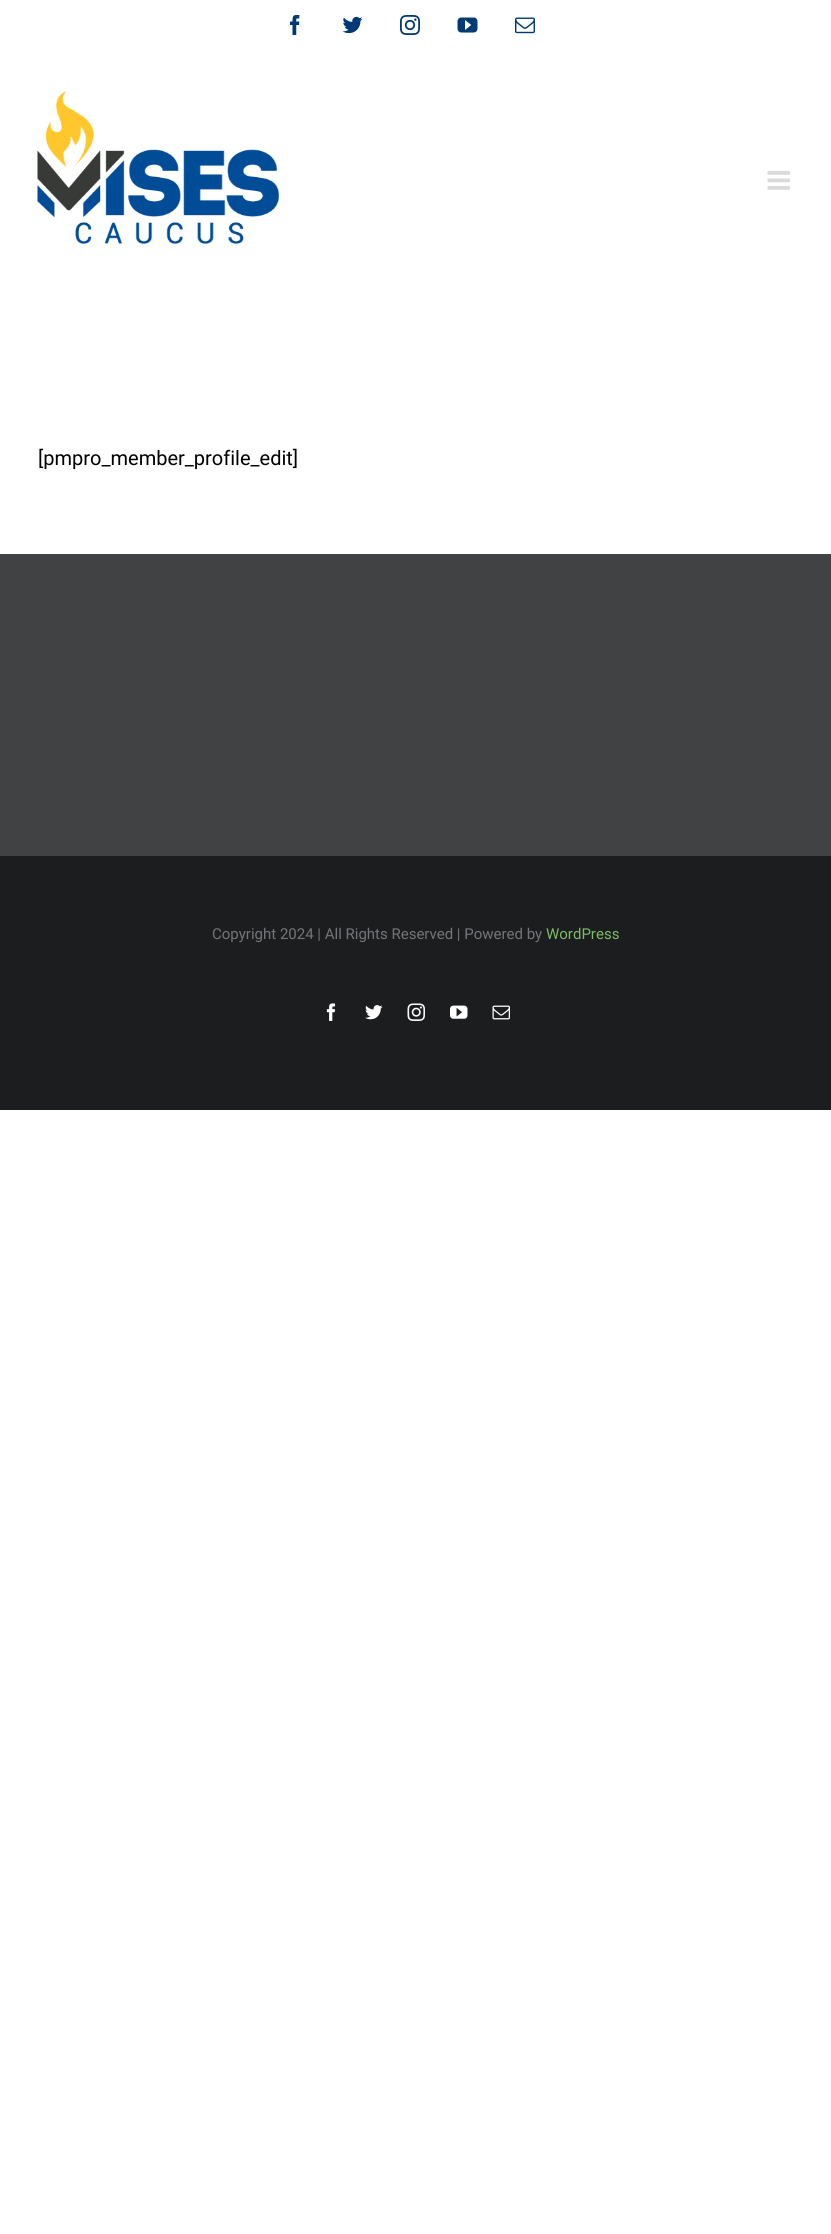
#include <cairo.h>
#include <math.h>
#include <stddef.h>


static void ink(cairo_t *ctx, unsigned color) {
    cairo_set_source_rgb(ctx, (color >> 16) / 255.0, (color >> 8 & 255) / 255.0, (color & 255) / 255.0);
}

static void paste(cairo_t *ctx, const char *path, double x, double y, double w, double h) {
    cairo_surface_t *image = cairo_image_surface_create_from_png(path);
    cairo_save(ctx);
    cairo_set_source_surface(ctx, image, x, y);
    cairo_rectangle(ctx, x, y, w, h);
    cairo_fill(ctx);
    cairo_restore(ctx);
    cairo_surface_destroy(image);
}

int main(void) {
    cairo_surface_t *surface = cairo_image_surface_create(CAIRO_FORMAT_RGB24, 831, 2234);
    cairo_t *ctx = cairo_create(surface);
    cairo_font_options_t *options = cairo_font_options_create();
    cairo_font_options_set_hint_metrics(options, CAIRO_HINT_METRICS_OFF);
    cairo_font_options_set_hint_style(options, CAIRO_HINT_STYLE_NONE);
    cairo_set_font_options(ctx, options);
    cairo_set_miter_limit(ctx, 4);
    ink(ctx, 0xFFFFFF);
    cairo_paint(ctx);
    paste(ctx, "media/1.png", 290, 15, 10, 20);
    paste(ctx, "media/2.png", 342, 16, 21, 18);
    paste(ctx, "media/3.png", 400, 15, 20, 20);
    paste(ctx, "media/4.png", 457, 17, 21, 16);
    paste(ctx, "media/5.png", 515, 17, 20, 17);
    paste(ctx, "media/6.png", 37, 91, 242, 153);
    paste(ctx, "media/7.png", 767, 171, 23, 19);
    cairo_select_font_face(ctx, "Roboto", CAIRO_FONT_SLANT_NORMAL, CAIRO_FONT_WEIGHT_NORMAL);
    cairo_set_font_size(ctx, 20);
    ink(ctx, 0x000000);
    cairo_move_to(ctx, 38, 465);
    cairo_show_text(ctx, "[pmpro_member_profile_edit]");
    ink(ctx, 0x404243);
    cairo_rectangle(ctx, 0, 554, 831, 302);
    cairo_fill(ctx);
    ink(ctx, 0x1C1D1E);
    cairo_rectangle(ctx, 0, 856, 831, 254);
    cairo_fill(ctx);
    cairo_set_font_size(ctx, 15);
    ink(ctx, 0x72767A);
    cairo_move_to(ctx, 212, 939);
    cairo_show_text(ctx, "Copyright 2024 | All Rights Reserved | Powered by");
    ink(ctx, 0x7ABC64);
    cairo_move_to(ctx, 546, 939);
    cairo_show_text(ctx, "WordPress");
    paste(ctx, "media/8.png", 326, 1003, 10, 18);
    paste(ctx, "media/9.png", 365, 1005, 18, 15);
    paste(ctx, "media/10.png", 407, 1003, 18, 18);
    paste(ctx, "media/11.png", 450, 1005, 18, 14);
    paste(ctx, "media/12.png", 492, 1005, 18, 15);
    cairo_surface_write_to_png(surface, "image.png");
    cairo_font_options_destroy(options);
    cairo_destroy(ctx);
    cairo_surface_destroy(surface);
    return 0;
}
